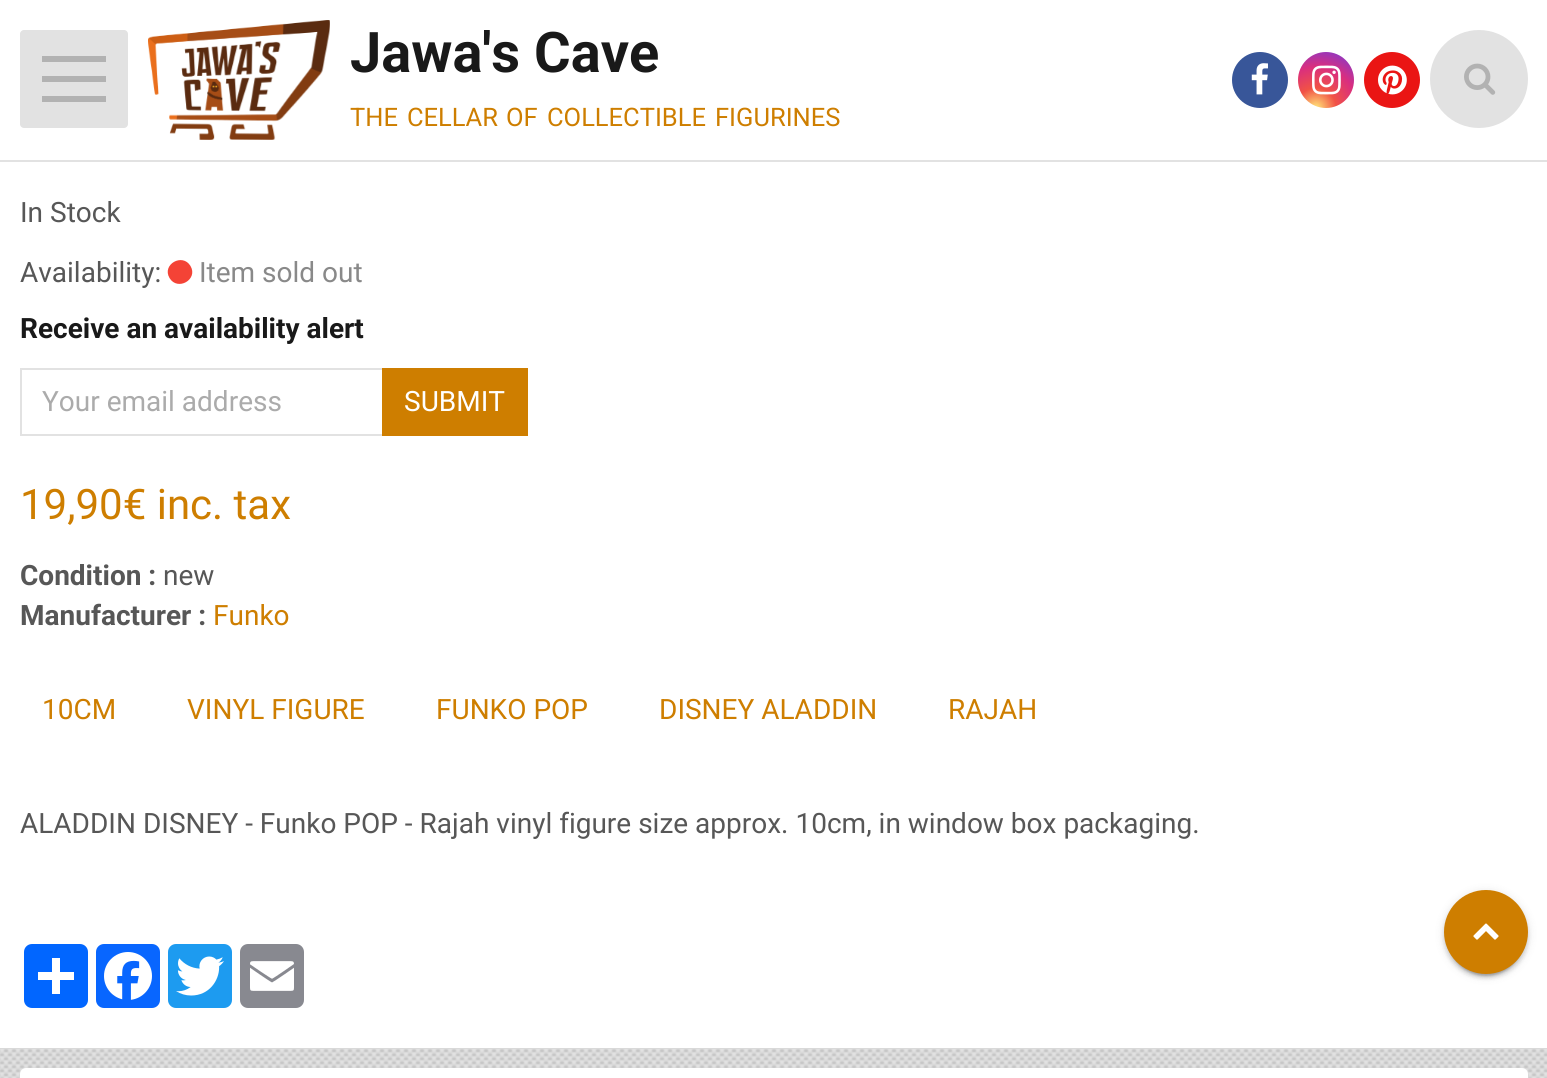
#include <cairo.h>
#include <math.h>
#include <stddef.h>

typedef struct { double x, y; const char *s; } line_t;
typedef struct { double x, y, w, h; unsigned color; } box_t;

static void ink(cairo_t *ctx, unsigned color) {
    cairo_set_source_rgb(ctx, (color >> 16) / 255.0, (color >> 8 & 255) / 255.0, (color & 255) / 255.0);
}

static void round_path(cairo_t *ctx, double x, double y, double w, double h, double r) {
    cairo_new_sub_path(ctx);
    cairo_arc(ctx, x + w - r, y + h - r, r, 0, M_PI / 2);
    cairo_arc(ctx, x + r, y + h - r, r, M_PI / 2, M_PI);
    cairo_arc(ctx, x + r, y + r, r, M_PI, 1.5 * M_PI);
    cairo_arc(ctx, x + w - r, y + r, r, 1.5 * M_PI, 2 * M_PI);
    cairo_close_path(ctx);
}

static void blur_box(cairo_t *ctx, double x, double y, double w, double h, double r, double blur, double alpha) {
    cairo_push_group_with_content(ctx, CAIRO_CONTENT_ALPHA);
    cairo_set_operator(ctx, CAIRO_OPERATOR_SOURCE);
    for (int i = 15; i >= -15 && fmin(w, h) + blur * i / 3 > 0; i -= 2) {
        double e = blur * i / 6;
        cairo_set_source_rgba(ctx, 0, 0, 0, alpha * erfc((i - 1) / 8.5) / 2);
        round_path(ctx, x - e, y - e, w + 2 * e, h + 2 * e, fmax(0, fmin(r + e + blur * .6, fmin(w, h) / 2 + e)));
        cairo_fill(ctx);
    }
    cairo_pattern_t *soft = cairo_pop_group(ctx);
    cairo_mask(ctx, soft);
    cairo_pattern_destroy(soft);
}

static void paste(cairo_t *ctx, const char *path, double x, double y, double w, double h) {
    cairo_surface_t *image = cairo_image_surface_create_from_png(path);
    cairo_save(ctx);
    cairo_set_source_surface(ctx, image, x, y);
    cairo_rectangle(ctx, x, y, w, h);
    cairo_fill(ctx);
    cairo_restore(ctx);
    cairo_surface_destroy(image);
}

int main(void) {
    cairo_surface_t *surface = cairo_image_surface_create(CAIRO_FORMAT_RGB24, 1547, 1078);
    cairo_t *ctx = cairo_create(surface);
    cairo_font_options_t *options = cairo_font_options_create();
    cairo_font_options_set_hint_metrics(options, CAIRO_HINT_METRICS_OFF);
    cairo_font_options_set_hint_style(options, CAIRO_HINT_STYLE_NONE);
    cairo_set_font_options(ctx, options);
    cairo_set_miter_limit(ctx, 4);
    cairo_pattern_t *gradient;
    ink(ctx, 0xFFFFFF);
    cairo_paint(ctx);
    ink(ctx, 0xE2E2E2);
    cairo_rectangle(ctx, 0, 160, 1547, 2);
    cairo_fill(ctx);
    round_path(ctx, 20, 30, 108, 98, 4);
    cairo_fill(ctx);
    {
        static const box_t items[] = {
            {42, 76, 64, 6, 0xB2B2B2},
            {42, 56, 64, 6, 0xB2B2B2},
            {42, 96, 64, 6, 0xB2B2B2},
        };
        for (size_t i = 0; i < sizeof items / sizeof *items; i++) {
            ink(ctx, items[i].color);
            cairo_rectangle(ctx, items[i].x, items[i].y, items[i].w, items[i].h);
            cairo_fill(ctx);
        }
    }
    paste(ctx, "media/1.png", 148, 20, 182, 120);
    cairo_select_font_face(ctx, "Roboto", CAIRO_FONT_SLANT_NORMAL, CAIRO_FONT_WEIGHT_BOLD);
    cairo_set_font_size(ctx, 56);
    ink(ctx, 0x191919);
    cairo_move_to(ctx, 350, 72);
    cairo_show_text(ctx, "Jawa's Cave");
    cairo_select_font_face(ctx, "Roboto", CAIRO_FONT_SLANT_NORMAL, CAIRO_FONT_WEIGHT_NORMAL);
    cairo_set_font_size(ctx, 25.5);
    ink(ctx, 0xCE7E00);
    {
        static const line_t items[] = {
            {350, 126, "THE"},
            {407, 126, "CELLAR"},
            {506, 126, "OF"},
            {547, 126, "COLLECTIBLE"},
            {715, 126, "FIGURINES"},
        };
        for (size_t i = 0; i < sizeof items / sizeof *items; i++) {
            cairo_move_to(ctx, items[i].x, items[i].y);
            cairo_show_text(ctx, items[i].s);
        }
    }
    ink(ctx, 0x385699);
    cairo_new_path(ctx);
    cairo_arc(ctx, 1260, 80, 28, 0, 2 * M_PI);
    cairo_fill(ctx);
    paste(ctx, "media/2.png", 1251, 63, 17, 32);
    gradient = cairo_pattern_create_radial(1316, 108, 0, 1316, 108, 67);
    cairo_pattern_add_color_stop_rgba(gradient, 0.04, 0.996, 0.827, 0.451, 1);
    cairo_pattern_add_color_stop_rgba(gradient, 0.3, 0.945, 0.322, 0.271, 1);
    cairo_pattern_add_color_stop_rgba(gradient, 0.62, 0.851, 0.18, 0.498, 1);
    cairo_pattern_add_color_stop_rgba(gradient, 0.85, 0.608, 0.212, 0.718, 1);
    cairo_pattern_add_color_stop_rgba(gradient, 1, 0.318, 0.369, 0.812, 1);
    cairo_set_source(ctx, gradient);
    cairo_pattern_destroy(gradient);
    cairo_arc(ctx, 1326, 80, 28, 0, 2 * M_PI);
    cairo_fill(ctx);
    paste(ctx, "media/3.png", 1312, 65, 29, 30);
    ink(ctx, 0xEA1514);
    cairo_arc(ctx, 1392, 80, 28, 0, 2 * M_PI);
    cairo_fill(ctx);
    paste(ctx, "media/4.png", 1378, 65, 29, 30);
    ink(ctx, 0xE2E2E2);
    cairo_arc(ctx, 1479, 79, 49, 0, 2 * M_PI);
    cairo_fill(ctx);
    paste(ctx, "media/5.png", 1464, 63, 32, 32);
    cairo_set_font_size(ctx, 28);
    ink(ctx, 0x575757);
    cairo_move_to(ctx, 20, 222);
    cairo_show_text(ctx, "In Stock");
    cairo_move_to(ctx, 20, 282);
    cairo_show_text(ctx, "Availability:");
    ink(ctx, 0xF44336);
    cairo_new_path(ctx);
    cairo_move_to(ctx, 190.5, 266);
    cairo_curve_to(ctx, 198.5, 279.5, 177.5, 291.5, 169.5, 278);
    cairo_curve_to(ctx, 161.5, 264.5, 182.5, 252.5, 190.5, 266);
    cairo_close_path(ctx);
    cairo_fill(ctx);
    ink(ctx, 0x898989);
    cairo_move_to(ctx, 199, 282);
    cairo_show_text(ctx, "Item sold out");
    cairo_select_font_face(ctx, "Roboto", CAIRO_FONT_SLANT_NORMAL, CAIRO_FONT_WEIGHT_BOLD);
    ink(ctx, 0x191919);
    cairo_move_to(ctx, 20, 338);
    cairo_show_text(ctx, "Receive an availability alert");
    cairo_rectangle(ctx, 21, 369, 362, 66);
    ink(ctx, 0xE2E2E2);
    cairo_stroke(ctx);
    cairo_select_font_face(ctx, "Roboto", CAIRO_FONT_SLANT_NORMAL, CAIRO_FONT_WEIGHT_NORMAL);
    ink(ctx, 0xABABAB);
    cairo_move_to(ctx, 42, 411);
    cairo_show_text(ctx, "Your email address");
    ink(ctx, 0xCE7E00);
    cairo_rectangle(ctx, 382, 368, 146, 68);
    cairo_fill(ctx);
    ink(ctx, 0xFFFFFF);
    cairo_move_to(ctx, 404, 411);
    cairo_show_text(ctx, "SUBMIT");
    cairo_set_font_size(ctx, 42);
    ink(ctx, 0xCE7E00);
    cairo_move_to(ctx, 20, 519);
    cairo_show_text(ctx, "19,90€ inc. tax");
    cairo_select_font_face(ctx, "Roboto", CAIRO_FONT_SLANT_NORMAL, CAIRO_FONT_WEIGHT_BOLD);
    cairo_set_font_size(ctx, 28);
    ink(ctx, 0x575757);
    cairo_move_to(ctx, 20, 585);
    cairo_show_text(ctx, "Condition :");
    cairo_select_font_face(ctx, "Roboto", CAIRO_FONT_SLANT_NORMAL, CAIRO_FONT_WEIGHT_NORMAL);
    cairo_move_to(ctx, 163, 585);
    cairo_show_text(ctx, "new");
    cairo_select_font_face(ctx, "Roboto", CAIRO_FONT_SLANT_NORMAL, CAIRO_FONT_WEIGHT_BOLD);
    cairo_move_to(ctx, 20, 625);
    cairo_show_text(ctx, "Manufacturer :");
    cairo_select_font_face(ctx, "Roboto", CAIRO_FONT_SLANT_NORMAL, CAIRO_FONT_WEIGHT_NORMAL);
    ink(ctx, 0xCE7E00);
    {
        static const line_t items[] = {
            {213, 625, "Funko"},
            {42, 719, "10CM"},
            {187, 719, "VINYL FIGURE"},
            {436, 719, "FUNKO POP"},
            {659, 719, "DISNEY ALADDIN"},
            {948, 719, "RAJAH"},
        };
        for (size_t i = 0; i < sizeof items / sizeof *items; i++) {
            cairo_move_to(ctx, items[i].x, items[i].y);
            cairo_show_text(ctx, items[i].s);
        }
    }
    ink(ctx, 0x575757);
    cairo_move_to(ctx, 20, 833);
    cairo_show_text(ctx, "ALADDIN DISNEY - Funko POP - Rajah vinyl figure size approx. 10cm, in window box packaging.");
    ink(ctx, 0x0166FF);
    round_path(ctx, 24, 944, 64, 64, 8);
    cairo_fill(ctx);
    ink(ctx, 0xFFFFFF);
    cairo_rectangle(ctx, 52, 958, 8, 36);
    cairo_fill(ctx);
    cairo_rectangle(ctx, 38, 972, 36, 8);
    cairo_fill(ctx);
    ink(ctx, 0x0866FF);
    round_path(ctx, 96, 944, 64, 64, 8);
    cairo_fill(ctx);
    paste(ctx, "media/6.png", 104, 952, 48, 48);
    ink(ctx, 0x1D9BF0);
    round_path(ctx, 168, 944, 64, 64, 8);
    cairo_fill(ctx);
    paste(ctx, "media/7.png", 176, 956, 48, 40);
    ink(ctx, 0x888990);
    round_path(ctx, 240, 944, 64, 64, 8);
    cairo_fill(ctx);
    paste(ctx, "media/8.png", 250, 961, 44, 30);
    ink(ctx, 0xE2E2E2);
    cairo_rectangle(ctx, 0, 1048, 1547, 30);
    cairo_fill(ctx);
    paste(ctx, "media/9.png", 0, 1048, 1547, 30);
    ink(ctx, 0xFFFFFF);
    round_path(ctx, 20, 1068, 1508, 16, 6);
    cairo_fill(ctx);
    ink(ctx, 0x000000);
    blur_box(ctx, 1444, 892, 84, 84, 42, 5, 0.12);
    blur_box(ctx, 1448, 900, 76, 76, 38, 1, 0.2);
    blur_box(ctx, 1444, 894, 84, 84, 42, 2, 0.14);
    ink(ctx, 0xCE7E00);
    cairo_arc(ctx, 1486, 932, 42, 0, 2 * M_PI);
    cairo_fill(ctx);
    paste(ctx, "media/10.png", 1473, 923, 26, 17);
    cairo_surface_write_to_png(surface, "image.png");
    cairo_font_options_destroy(options);
    cairo_destroy(ctx);
    cairo_surface_destroy(surface);
    return 0;
}
